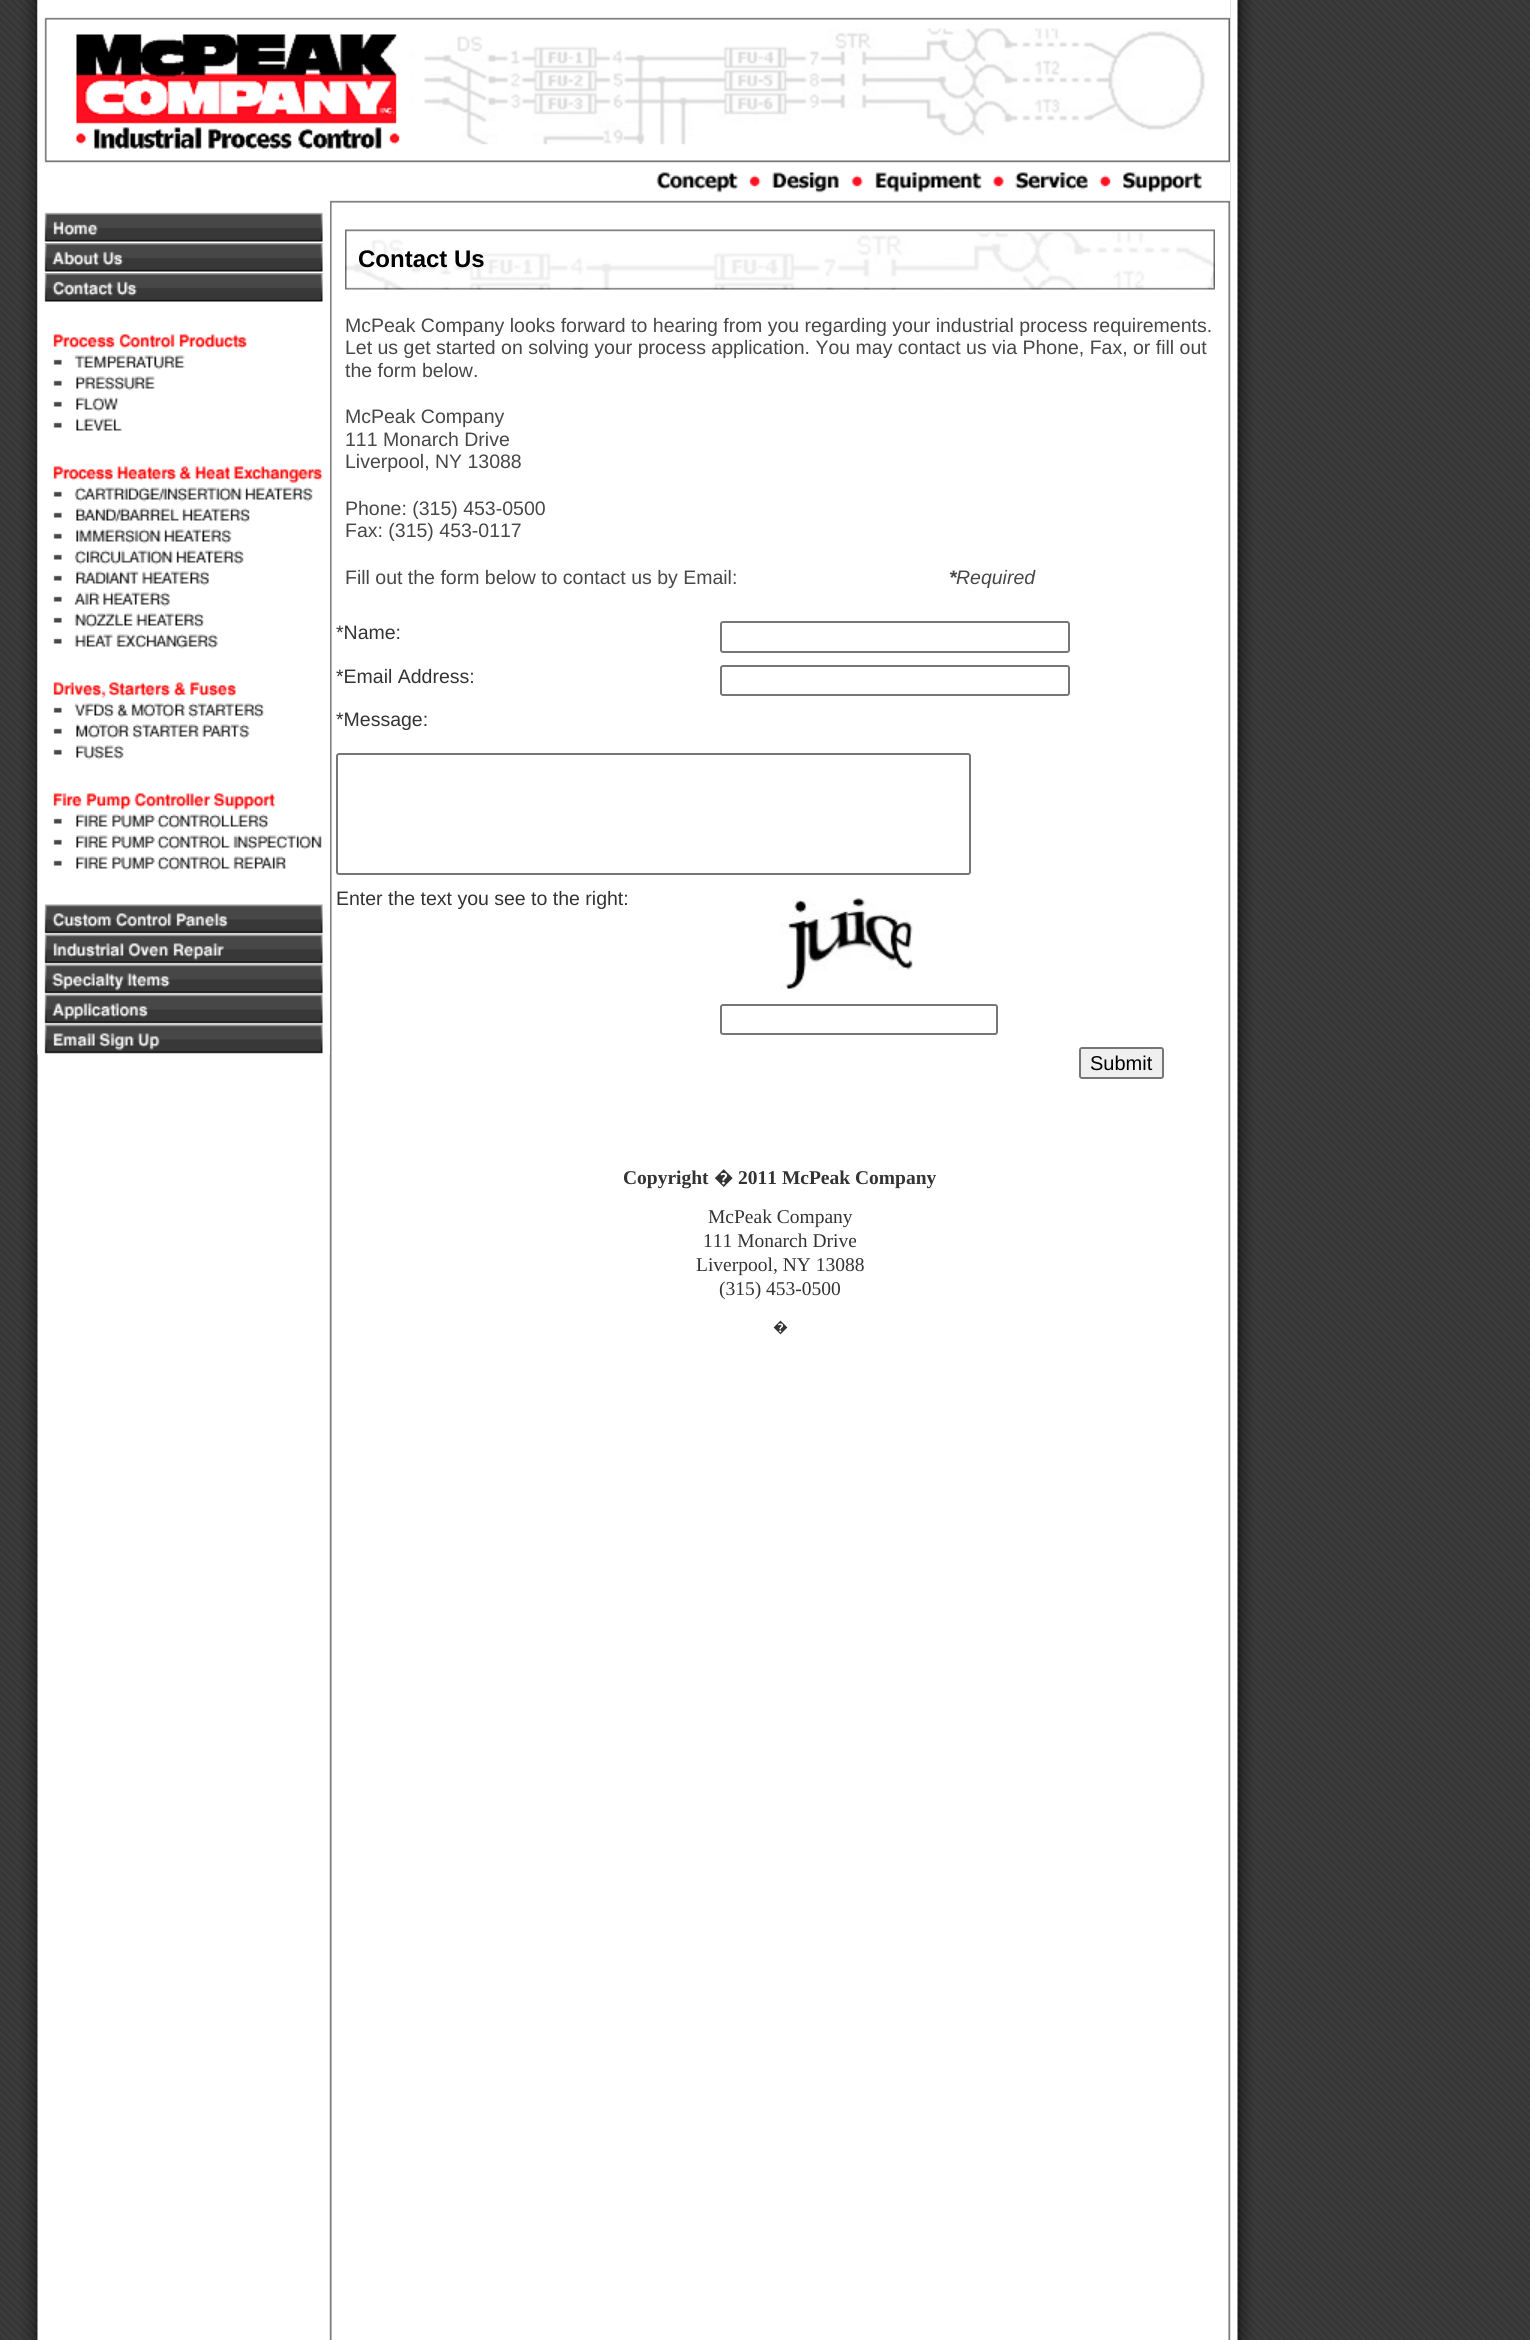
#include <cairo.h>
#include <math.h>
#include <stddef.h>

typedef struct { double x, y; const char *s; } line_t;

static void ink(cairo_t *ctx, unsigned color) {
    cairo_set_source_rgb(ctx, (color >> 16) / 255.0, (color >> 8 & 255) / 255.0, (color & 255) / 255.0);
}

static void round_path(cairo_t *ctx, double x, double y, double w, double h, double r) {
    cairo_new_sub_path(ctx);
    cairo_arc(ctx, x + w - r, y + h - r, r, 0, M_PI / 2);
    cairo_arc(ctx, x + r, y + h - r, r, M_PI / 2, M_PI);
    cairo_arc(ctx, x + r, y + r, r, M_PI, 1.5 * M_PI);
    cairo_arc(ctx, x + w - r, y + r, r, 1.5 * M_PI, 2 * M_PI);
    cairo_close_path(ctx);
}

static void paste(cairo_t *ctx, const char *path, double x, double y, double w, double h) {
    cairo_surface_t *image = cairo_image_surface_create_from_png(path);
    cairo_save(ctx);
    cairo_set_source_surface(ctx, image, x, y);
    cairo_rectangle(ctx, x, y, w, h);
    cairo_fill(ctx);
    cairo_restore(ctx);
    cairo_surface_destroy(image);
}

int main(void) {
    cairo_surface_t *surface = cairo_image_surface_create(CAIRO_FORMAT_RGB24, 1530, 2340);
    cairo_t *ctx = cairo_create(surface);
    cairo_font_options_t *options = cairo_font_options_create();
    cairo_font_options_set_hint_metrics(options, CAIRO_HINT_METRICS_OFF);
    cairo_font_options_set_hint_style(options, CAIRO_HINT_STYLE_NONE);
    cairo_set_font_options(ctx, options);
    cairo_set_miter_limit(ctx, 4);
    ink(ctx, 0xFFFFFF);
    cairo_paint(ctx);
    paste(ctx, "media/1.png", 0, 0, 1530, 2340);
    paste(ctx, "media/2.png", 37, 0, 1193, 203);
    paste(ctx, "media/3.png", 37, 202, 293, 41);
    paste(ctx, "media/4.png", 37, 243, 293, 30);
    paste(ctx, "media/5.png", 37, 273, 293, 30);
    paste(ctx, "media/6.png", 37, 303, 293, 48);
    paste(ctx, "media/7.png", 37, 351, 293, 21);
    paste(ctx, "media/8.png", 37, 372, 293, 21);
    paste(ctx, "media/9.png", 37, 393, 293, 21);
    paste(ctx, "media/10.png", 37, 414, 293, 21);
    paste(ctx, "media/11.png", 37, 435, 293, 48);
    paste(ctx, "media/12.png", 37, 483, 293, 21);
    paste(ctx, "media/13.png", 37, 504, 293, 21);
    paste(ctx, "media/14.png", 37, 525, 293, 21);
    paste(ctx, "media/15.png", 37, 546, 293, 21);
    paste(ctx, "media/16.png", 37, 567, 293, 21);
    paste(ctx, "media/17.png", 37, 588, 293, 21);
    paste(ctx, "media/18.png", 37, 609, 293, 21);
    paste(ctx, "media/19.png", 37, 630, 293, 21);
    paste(ctx, "media/20.png", 37, 651, 293, 48);
    paste(ctx, "media/21.png", 37, 699, 293, 21);
    paste(ctx, "media/22.png", 37, 720, 293, 21);
    paste(ctx, "media/23.png", 37, 741, 293, 21);
    paste(ctx, "media/24.png", 37, 762, 293, 48);
    paste(ctx, "media/25.png", 37, 810, 293, 21);
    paste(ctx, "media/26.png", 37, 831, 293, 21);
    paste(ctx, "media/27.png", 37, 852, 293, 21);
    paste(ctx, "media/28.png", 37, 873, 293, 62);
    paste(ctx, "media/29.png", 37, 934, 293, 31);
    paste(ctx, "media/30.png", 37, 964, 293, 31);
    paste(ctx, "media/31.png", 37, 994, 293, 31);
    paste(ctx, "media/32.png", 37, 1024, 293, 31);
    paste(ctx, "media/33.png", 345, 229, 870, 61);
    cairo_select_font_face(ctx, "Liberation Sans", CAIRO_FONT_SLANT_NORMAL, CAIRO_FONT_WEIGHT_BOLD);
    cairo_set_font_size(ctx, 24);
    ink(ctx, 0x000000);
    cairo_move_to(ctx, 358, 267);
    cairo_show_text(ctx, "Contact Us");
    cairo_select_font_face(ctx, "Liberation Sans", CAIRO_FONT_SLANT_NORMAL, CAIRO_FONT_WEIGHT_NORMAL);
    cairo_set_font_size(ctx, 19.5);
    ink(ctx, 0x474747);
    {
        static const line_t items[] = {
            {345, 332, "McPeak Company looks forward to hearing from you regarding your industrial process requirements."},
            {345, 354, "Let us get started on solving your process application. You may contact us via Phone, Fax, or fill out"},
            {345, 377, "the form below."},
            {345, 423, "McPeak Company"},
            {345, 446, "111 Monarch Drive"},
            {345, 468, "Liverpool, NY 13088"},
            {345, 515, "Phone: (315) 453-0500"},
            {345, 537, "Fax: (315) 453-0117"},
            {345, 584, "Fill out the form below to contact us by Email:"},
        };
        for (size_t i = 0; i < sizeof items / sizeof *items; i++) {
            cairo_move_to(ctx, items[i].x, items[i].y);
            cairo_show_text(ctx, items[i].s);
        }
    }
    cairo_select_font_face(ctx, "Liberation Sans", CAIRO_FONT_SLANT_ITALIC, CAIRO_FONT_WEIGHT_BOLD);
    cairo_move_to(ctx, 949, 584);
    cairo_show_text(ctx, "*");
    cairo_select_font_face(ctx, "Liberation Sans", CAIRO_FONT_SLANT_ITALIC, CAIRO_FONT_WEIGHT_NORMAL);
    cairo_move_to(ctx, 956, 584);
    cairo_show_text(ctx, "Required");
    cairo_select_font_face(ctx, "Liberation Sans", CAIRO_FONT_SLANT_NORMAL, CAIRO_FONT_WEIGHT_NORMAL);
    ink(ctx, 0x333333);
    cairo_move_to(ctx, 336, 639);
    cairo_show_text(ctx, "*Name:");
    round_path(ctx, 721, 622, 348, 30, 2);
    ink(ctx, 0x767676);
    cairo_stroke(ctx);
    ink(ctx, 0x333333);
    cairo_move_to(ctx, 336, 683);
    cairo_show_text(ctx, "*Email Address:");
    round_path(ctx, 721, 666, 348, 29, 2);
    ink(ctx, 0x767676);
    cairo_stroke(ctx);
    ink(ctx, 0x333333);
    cairo_move_to(ctx, 336, 726);
    cairo_show_text(ctx, "*Message:");
    round_path(ctx, 337, 754, 633, 120, 2);
    ink(ctx, 0x767676);
    cairo_stroke(ctx);
    ink(ctx, 0x333333);
    cairo_move_to(ctx, 336, 905);
    cairo_show_text(ctx, "Enter the text you see to the right:");
    paste(ctx, "media/34.png", 780, 898, 133, 92);
    round_path(ctx, 721, 1005, 276, 29, 2);
    ink(ctx, 0x767676);
    cairo_stroke(ctx);
    ink(ctx, 0xEFEFEF);
    round_path(ctx, 1080, 1048, 83, 30, 2);
    cairo_fill_preserve(ctx);
    ink(ctx, 0x767676);
    cairo_stroke(ctx);
    cairo_set_font_size(ctx, 20);
    ink(ctx, 0x000000);
    cairo_move_to(ctx, 1090, 1070);
    cairo_show_text(ctx, "Submit");
    cairo_select_font_face(ctx, "Liberation Serif", CAIRO_FONT_SLANT_NORMAL, CAIRO_FONT_WEIGHT_BOLD);
    cairo_set_font_size(ctx, 19.5);
    ink(ctx, 0x333333);
    cairo_move_to(ctx, 623, 1184);
    cairo_show_text(ctx, "Copyright");
    cairo_select_font_face(ctx, "Noto Sans", CAIRO_FONT_SLANT_NORMAL, CAIRO_FONT_WEIGHT_BOLD);
    cairo_move_to(ctx, 714, 1184);
    cairo_show_text(ctx, "�");
    cairo_select_font_face(ctx, "Liberation Serif", CAIRO_FONT_SLANT_NORMAL, CAIRO_FONT_WEIGHT_BOLD);
    cairo_move_to(ctx, 738, 1184);
    cairo_show_text(ctx, "2011 McPeak Company");
    cairo_select_font_face(ctx, "Liberation Serif", CAIRO_FONT_SLANT_NORMAL, CAIRO_FONT_WEIGHT_NORMAL);
    {
        static const line_t items[] = {
            {708, 1223, "McPeak Company"},
            {703, 1247, "111 Monarch Drive"},
            {696, 1271, "Liverpool, NY 13088"},
            {719, 1295, "(315) 453-0500"},
        };
        for (size_t i = 0; i < sizeof items / sizeof *items; i++) {
            cairo_move_to(ctx, items[i].x, items[i].y);
            cairo_show_text(ctx, items[i].s);
        }
    }
    cairo_select_font_face(ctx, "Noto Sans", CAIRO_FONT_SLANT_NORMAL, CAIRO_FONT_WEIGHT_NORMAL);
    cairo_set_font_size(ctx, 15);
    cairo_move_to(ctx, 773, 1332);
    cairo_show_text(ctx, "�");
    cairo_surface_write_to_png(surface, "image.png");
    cairo_font_options_destroy(options);
    cairo_destroy(ctx);
    cairo_surface_destroy(surface);
    return 0;
}
